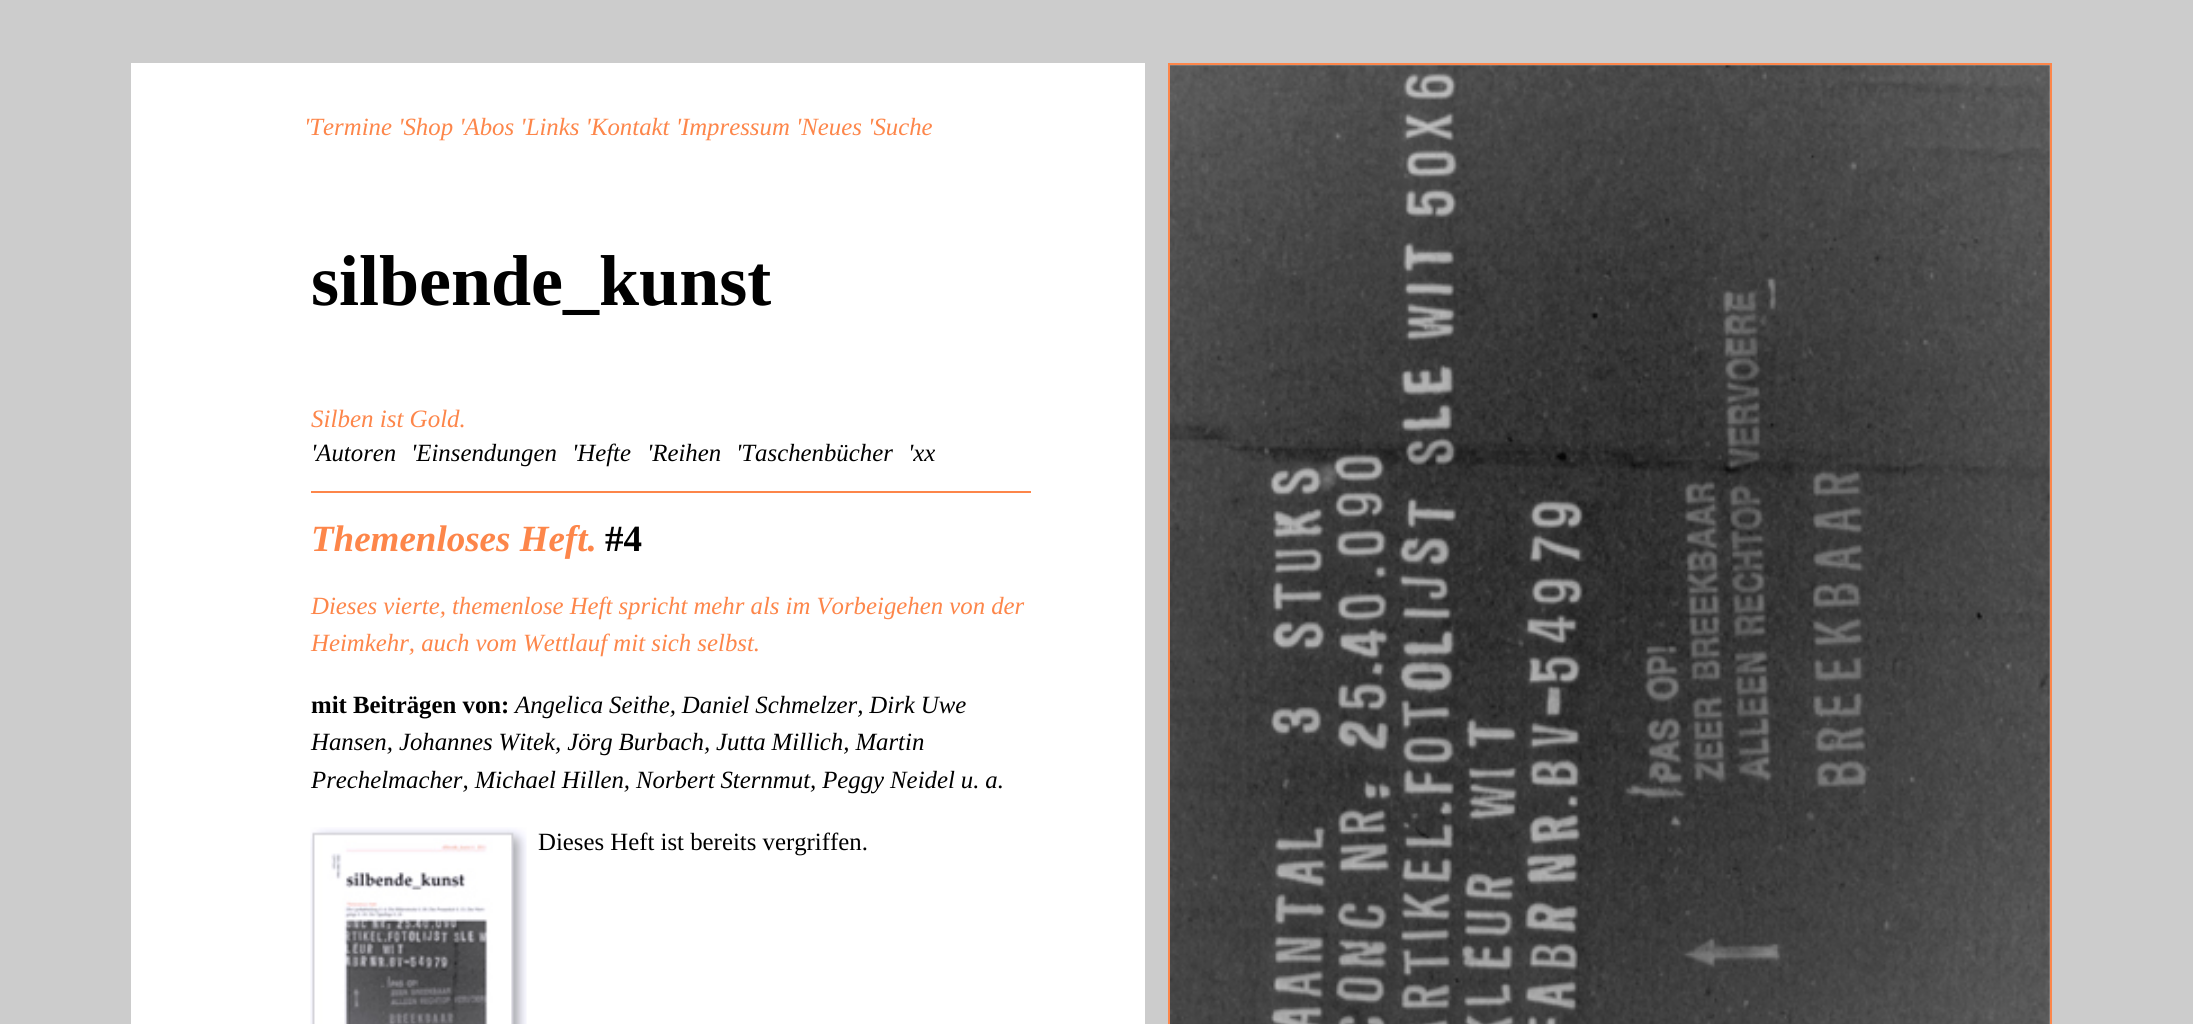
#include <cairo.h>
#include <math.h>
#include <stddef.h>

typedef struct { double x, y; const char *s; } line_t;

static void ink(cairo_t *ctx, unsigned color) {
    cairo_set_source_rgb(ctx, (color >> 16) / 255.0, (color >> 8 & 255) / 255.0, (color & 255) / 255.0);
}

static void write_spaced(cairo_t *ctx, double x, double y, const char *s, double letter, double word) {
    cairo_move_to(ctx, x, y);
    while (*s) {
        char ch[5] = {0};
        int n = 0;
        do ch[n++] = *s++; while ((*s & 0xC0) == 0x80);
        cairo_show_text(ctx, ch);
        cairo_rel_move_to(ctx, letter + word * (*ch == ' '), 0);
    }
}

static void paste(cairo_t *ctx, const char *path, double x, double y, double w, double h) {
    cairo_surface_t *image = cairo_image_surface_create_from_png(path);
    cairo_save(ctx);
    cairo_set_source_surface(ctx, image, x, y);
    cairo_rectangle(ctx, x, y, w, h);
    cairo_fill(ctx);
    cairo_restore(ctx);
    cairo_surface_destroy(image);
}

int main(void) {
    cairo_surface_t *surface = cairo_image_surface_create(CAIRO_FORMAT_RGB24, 2193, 1024);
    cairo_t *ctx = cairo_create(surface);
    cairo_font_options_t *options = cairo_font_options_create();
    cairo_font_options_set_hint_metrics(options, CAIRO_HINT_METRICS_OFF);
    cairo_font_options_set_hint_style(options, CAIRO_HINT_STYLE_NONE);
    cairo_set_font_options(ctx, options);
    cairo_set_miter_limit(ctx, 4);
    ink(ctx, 0xCCCCCC);
    cairo_paint(ctx);
    ink(ctx, 0xFFFFFF);
    cairo_rectangle(ctx, 131, 63, 1014, 961);
    cairo_fill(ctx);
    cairo_select_font_face(ctx, "Liberation Serif", CAIRO_FONT_SLANT_ITALIC, CAIRO_FONT_WEIGHT_NORMAL);
    cairo_set_font_size(ctx, 24.8);
    ink(ctx, 0xFD864A);
    cairo_move_to(ctx, 304, 135);
    cairo_show_text(ctx, "'Termine 'Shop 'Abos 'Links 'Kontakt 'Impressum 'Neues 'Suche");
    cairo_select_font_face(ctx, "Liberation Serif", CAIRO_FONT_SLANT_NORMAL, CAIRO_FONT_WEIGHT_BOLD);
    cairo_set_font_size(ctx, 72);
    ink(ctx, 0x000000);
    cairo_move_to(ctx, 311, 305);
    cairo_show_text(ctx, "silbende_kunst");
    cairo_select_font_face(ctx, "Liberation Serif", CAIRO_FONT_SLANT_ITALIC, CAIRO_FONT_WEIGHT_NORMAL);
    cairo_set_font_size(ctx, 25);
    ink(ctx, 0xFD864A);
    cairo_move_to(ctx, 311, 427);
    cairo_show_text(ctx, "Silben ist Gold.");
    cairo_set_font_size(ctx, 24.8);
    ink(ctx, 0x000000);
    {
        static const line_t items[] = {
            {311, 461, "'Autoren"},
            {411, 461, "'Einsendungen"},
            {572, 461, "'Hefte"},
            {647, 461, "'Reihen"},
            {736, 461, "'Taschenbücher"},
            {908, 461, "'xx"},
        };
        for (size_t i = 0; i < sizeof items / sizeof *items; i++) {
            cairo_move_to(ctx, items[i].x, items[i].y);
            cairo_show_text(ctx, items[i].s);
        }
    }
    ink(ctx, 0xFD864A);
    cairo_rectangle(ctx, 311, 491, 720, 2);
    cairo_fill(ctx);
    cairo_select_font_face(ctx, "Liberation Serif", CAIRO_FONT_SLANT_ITALIC, CAIRO_FONT_WEIGHT_BOLD);
    cairo_set_font_size(ctx, 37);
    cairo_move_to(ctx, 311, 551);
    cairo_show_text(ctx, "Themenloses Heft.");
    cairo_select_font_face(ctx, "Liberation Serif", CAIRO_FONT_SLANT_NORMAL, CAIRO_FONT_WEIGHT_BOLD);
    ink(ctx, 0x000000);
    cairo_move_to(ctx, 605, 551);
    cairo_show_text(ctx, "#4");
    cairo_select_font_face(ctx, "Liberation Serif", CAIRO_FONT_SLANT_ITALIC, CAIRO_FONT_WEIGHT_NORMAL);
    cairo_set_font_size(ctx, 24.8);
    ink(ctx, 0xFD864A);
    write_spaced(ctx, 311, 614, "Dieses vierte, themenlose Heft spricht mehr als im Vorbeigehen von der", 0, -0.1);
    cairo_move_to(ctx, 311, 651);
    cairo_show_text(ctx, "Heimkehr, auch vom Wettlauf mit sich selbst.");
    cairo_select_font_face(ctx, "Liberation Serif", CAIRO_FONT_SLANT_NORMAL, CAIRO_FONT_WEIGHT_BOLD);
    ink(ctx, 0x000000);
    cairo_move_to(ctx, 311, 713);
    cairo_show_text(ctx, "mit Beiträgen von:");
    cairo_select_font_face(ctx, "Liberation Serif", CAIRO_FONT_SLANT_ITALIC, CAIRO_FONT_WEIGHT_NORMAL);
    {
        static const line_t items[] = {
            {515, 713, "Angelica Seithe, Daniel Schmelzer, Dirk Uwe"},
            {311, 750, "Hansen, Johannes Witek, Jörg Burbach, Jutta Millich, Martin"},
            {311, 788, "Prechelmacher, Michael Hillen, Norbert Sternmut, Peggy Neidel u. a."},
        };
        for (size_t i = 0; i < sizeof items / sizeof *items; i++) {
            write_spaced(ctx, items[i].x, items[i].y, items[i].s, 0, -0.25);
        }
    }
    paste(ctx, "media/1.png", 310, 827, 217, 197);
    cairo_select_font_face(ctx, "Liberation Serif", CAIRO_FONT_SLANT_NORMAL, CAIRO_FONT_WEIGHT_NORMAL);
    cairo_move_to(ctx, 538, 850);
    cairo_show_text(ctx, "Dieses Heft ist bereits vergriffen.");
    cairo_rectangle(ctx, 1169, 64, 882, 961);
    ink(ctx, 0xFD864A);
    cairo_stroke(ctx);
    paste(ctx, "media/2.png", 1170, 65, 880, 959);
    cairo_surface_write_to_png(surface, "image.png");
    cairo_font_options_destroy(options);
    cairo_destroy(ctx);
    cairo_surface_destroy(surface);
    return 0;
}
